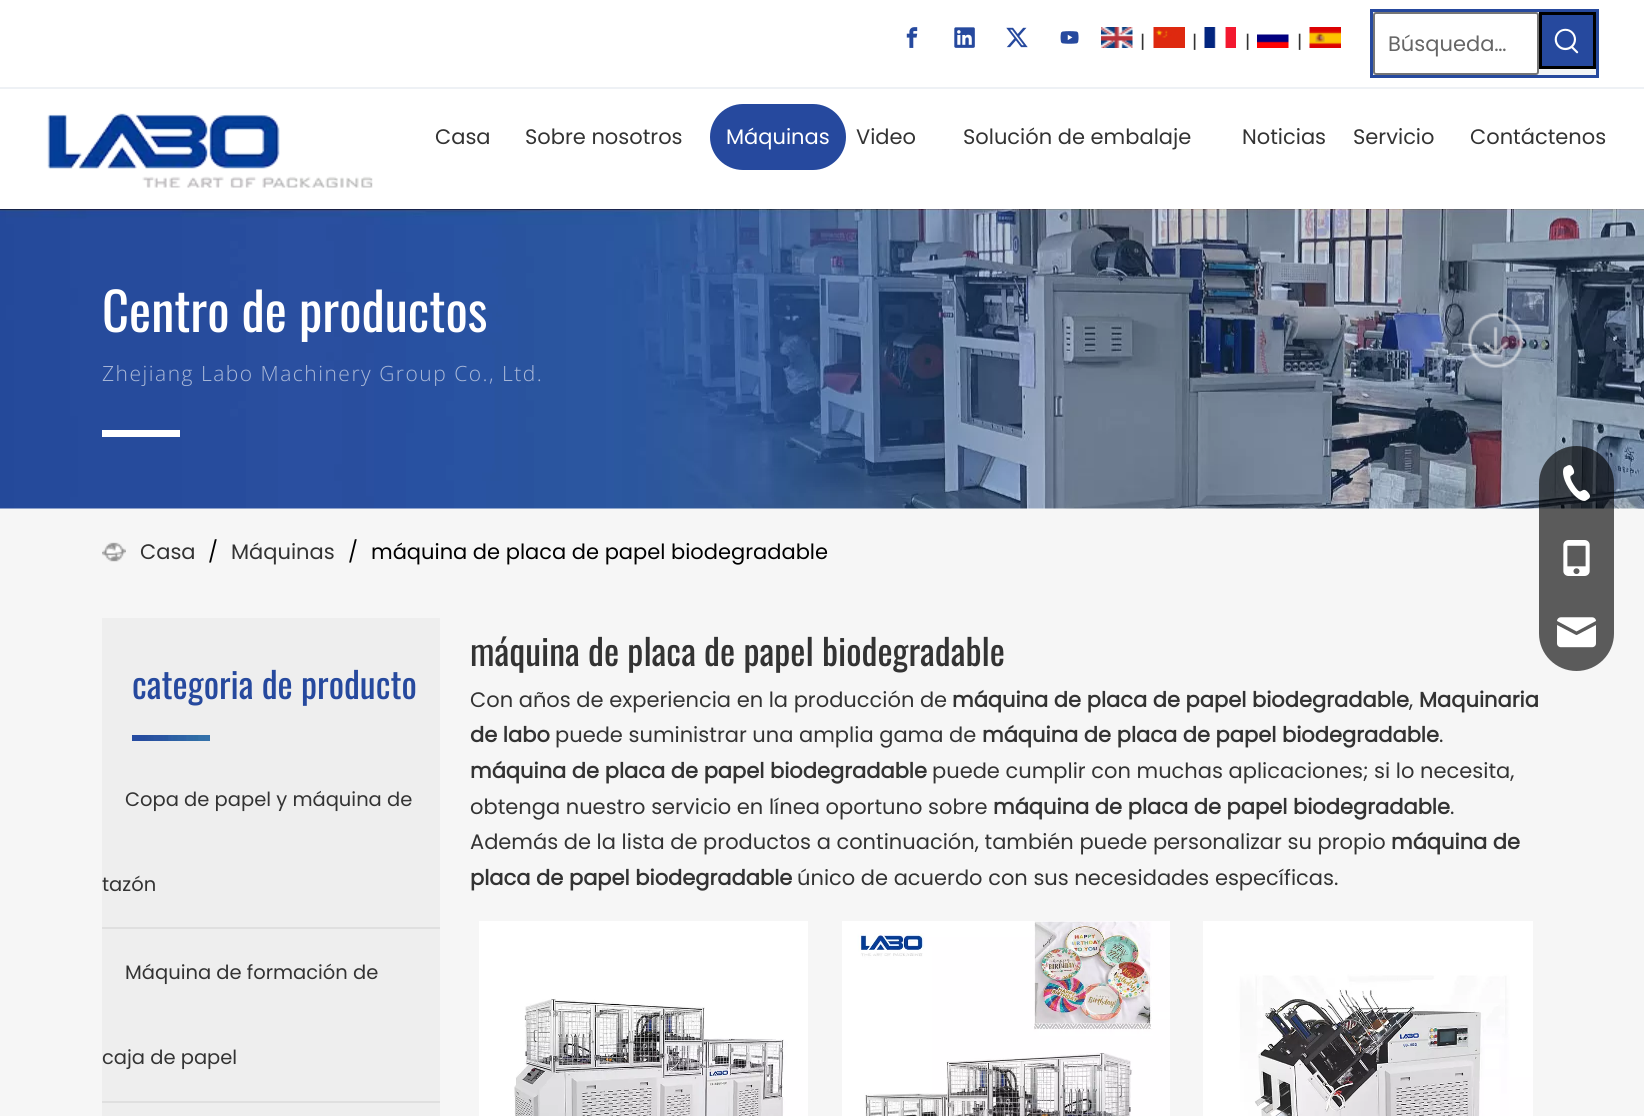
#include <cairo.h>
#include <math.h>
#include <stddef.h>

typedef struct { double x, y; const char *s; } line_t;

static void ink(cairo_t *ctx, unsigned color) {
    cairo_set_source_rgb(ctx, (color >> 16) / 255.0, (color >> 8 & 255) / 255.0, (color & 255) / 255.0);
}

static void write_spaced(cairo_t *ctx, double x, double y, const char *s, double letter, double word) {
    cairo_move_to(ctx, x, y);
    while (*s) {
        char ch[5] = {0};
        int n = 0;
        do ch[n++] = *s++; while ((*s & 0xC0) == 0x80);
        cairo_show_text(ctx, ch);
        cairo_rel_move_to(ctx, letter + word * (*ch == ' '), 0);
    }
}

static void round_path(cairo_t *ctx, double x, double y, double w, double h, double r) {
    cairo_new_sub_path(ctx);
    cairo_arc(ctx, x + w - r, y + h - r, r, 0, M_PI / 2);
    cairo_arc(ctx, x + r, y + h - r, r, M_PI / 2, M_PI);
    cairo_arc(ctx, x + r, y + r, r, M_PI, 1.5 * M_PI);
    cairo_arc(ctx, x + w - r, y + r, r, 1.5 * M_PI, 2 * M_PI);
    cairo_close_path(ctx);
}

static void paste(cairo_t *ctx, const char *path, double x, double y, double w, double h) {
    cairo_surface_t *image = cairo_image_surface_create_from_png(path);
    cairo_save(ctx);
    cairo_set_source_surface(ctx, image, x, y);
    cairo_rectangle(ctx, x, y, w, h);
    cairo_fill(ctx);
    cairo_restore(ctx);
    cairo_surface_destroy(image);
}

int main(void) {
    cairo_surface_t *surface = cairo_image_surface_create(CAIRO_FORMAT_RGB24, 1644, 1116);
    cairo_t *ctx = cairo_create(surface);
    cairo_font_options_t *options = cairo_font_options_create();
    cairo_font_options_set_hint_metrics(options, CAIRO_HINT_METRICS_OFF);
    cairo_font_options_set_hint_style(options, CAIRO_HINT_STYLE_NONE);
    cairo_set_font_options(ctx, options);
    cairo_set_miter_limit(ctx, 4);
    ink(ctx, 0xF6F6F6);
    cairo_paint(ctx);
    ink(ctx, 0xFFFFFF);
    cairo_rectangle(ctx, 0, 0, 1644, 87);
    cairo_fill(ctx);
    ink(ctx, 0xEEF1F5);
    cairo_rectangle(ctx, 0, 87, 1644, 2);
    cairo_fill(ctx);
    paste(ctx, "media/1.png", 906, 27, 12, 21);
    paste(ctx, "media/2.png", 954, 27, 21, 21);
    paste(ctx, "media/3.png", 1006, 27, 22, 21);
    paste(ctx, "media/4.png", 1060, 31, 19, 13);
    paste(ctx, "media/5.png", 1101, 27, 32, 21);
    cairo_select_font_face(ctx, "Poppins", CAIRO_FONT_SLANT_NORMAL, CAIRO_FONT_WEIGHT_NORMAL);
    cairo_set_font_size(ctx, 18);
    ink(ctx, 0x333333);
    cairo_move_to(ctx, 1140, 48);
    cairo_show_text(ctx, "|");
    paste(ctx, "media/6.png", 1153, 27, 32, 21);
    cairo_move_to(ctx, 1192, 48);
    cairo_show_text(ctx, "|");
    paste(ctx, "media/7.png", 1204, 27, 32, 21);
    cairo_move_to(ctx, 1245, 48);
    cairo_show_text(ctx, "|");
    paste(ctx, "media/8.png", 1257, 34, 32, 14);
    cairo_move_to(ctx, 1297, 48);
    cairo_show_text(ctx, "|");
    paste(ctx, "media/9.png", 1309, 27, 32, 21);
    ink(ctx, 0xF2F4F6);
    cairo_rectangle(ctx, 1371.5, 10.5, 226, 66);
    cairo_fill_preserve(ctx);
    ink(ctx, 0x26499E);
    cairo_set_line_width(ctx, 3);
    cairo_stroke(ctx);
    ink(ctx, 0xFFFFFF);
    round_path(ctx, 1374, 13, 164, 61, 2);
    cairo_fill_preserve(ctx);
    ink(ctx, 0x767676);
    cairo_set_line_width(ctx, 2);
    cairo_stroke(ctx);
    cairo_set_font_size(ctx, 21);
    ink(ctx, 0x666666);
    cairo_move_to(ctx, 1388, 51);
    cairo_show_text(ctx, "Búsqueda…");
    ink(ctx, 0x26499E);
    cairo_rectangle(ctx, 1540.5, 13.5, 54, 54);
    cairo_fill_preserve(ctx);
    ink(ctx, 0x000000);
    cairo_set_line_width(ctx, 3);
    cairo_stroke(ctx);
    paste(ctx, "media/10.png", 1554, 28, 25, 26);
    ink(ctx, 0xFFFFFF);
    cairo_rectangle(ctx, 0, 89, 1644, 120);
    cairo_fill(ctx);
    paste(ctx, "media/11.png", 47, 113, 326, 75);
    ink(ctx, 0x333333);
    cairo_move_to(ctx, 435, 144);
    cairo_show_text(ctx, "Casa");
    cairo_move_to(ctx, 525, 144);
    cairo_show_text(ctx, "Sobre nosotros");
    ink(ctx, 0x26499E);
    round_path(ctx, 710, 104, 136, 66, 33);
    cairo_fill(ctx);
    ink(ctx, 0xFFFFFF);
    cairo_move_to(ctx, 726, 144);
    cairo_show_text(ctx, "Máquinas");
    ink(ctx, 0x333333);
    {
        static const line_t items[] = {
            {856, 144, "Video"},
            {963, 144, "Solución de embalaje"},
            {1242, 144, "Noticias"},
            {1353, 144, "Servicio"},
            {1470, 144, "Contáctenos"},
        };
        for (size_t i = 0; i < sizeof items / sizeof *items; i++) {
            cairo_move_to(ctx, items[i].x, items[i].y);
            cairo_show_text(ctx, items[i].s);
        }
    }
    paste(ctx, "media/12.png", 0, 209, 1644, 300);
    ink(ctx, 0xFFFFFF);
    cairo_rectangle(ctx, 102, 430, 78, 7);
    cairo_fill(ctx);
    cairo_select_font_face(ctx, "Oswald", CAIRO_FONT_SLANT_NORMAL, CAIRO_FONT_WEIGHT_NORMAL);
    cairo_set_font_size(ctx, 52.5);
    cairo_move_to(ctx, 102, 332);
    cairo_show_text(ctx, "Centro de productos");
    cairo_select_font_face(ctx, "Open Sans Light", CAIRO_FONT_SLANT_NORMAL, CAIRO_FONT_WEIGHT_NORMAL);
    cairo_set_font_size(ctx, 21);
    ink(ctx, 0xA9B8D8);
    write_spaced(ctx, 102, 381, "Zhejiang Labo Machinery Group Co., Ltd.", 1.5, 0);
    paste(ctx, "media/13.png", 1468, 313, 55, 55);
    paste(ctx, "media/14.png", 102, 542, 24, 20);
    cairo_select_font_face(ctx, "Poppins", CAIRO_FONT_SLANT_NORMAL, CAIRO_FONT_WEIGHT_NORMAL);
    ink(ctx, 0x333333);
    cairo_move_to(ctx, 140, 559);
    cairo_show_text(ctx, "Casa");
    ink(ctx, 0x000000);
    cairo_move_to(ctx, 208, 559);
    cairo_show_text(ctx, "/");
    ink(ctx, 0x333333);
    cairo_move_to(ctx, 231, 559);
    cairo_show_text(ctx, "Máquinas");
    ink(ctx, 0x000000);
    cairo_move_to(ctx, 348, 559);
    cairo_show_text(ctx, "/");
    cairo_move_to(ctx, 371, 559);
    cairo_show_text(ctx, "máquina de placa de papel biodegradable");
    ink(ctx, 0xEEEEEE);
    cairo_rectangle(ctx, 102, 618, 338, 498);
    cairo_fill(ctx);
    paste(ctx, "media/15.png", 132, 735, 78, 6);
    cairo_select_font_face(ctx, "Oswald", CAIRO_FONT_SLANT_NORMAL, CAIRO_FONT_WEIGHT_NORMAL);
    cairo_set_font_size(ctx, 36);
    ink(ctx, 0x26499E);
    cairo_move_to(ctx, 132, 699);
    cairo_show_text(ctx, "categoria de producto");
    cairo_select_font_face(ctx, "Poppins", CAIRO_FONT_SLANT_NORMAL, CAIRO_FONT_WEIGHT_NORMAL);
    cairo_set_font_size(ctx, 19.5);
    ink(ctx, 0x333333);
    cairo_move_to(ctx, 125, 806);
    cairo_show_text(ctx, "Copa de papel y máquina de");
    cairo_move_to(ctx, 102, 891);
    cairo_show_text(ctx, "tazón");
    ink(ctx, 0xDFDFDF);
    cairo_rectangle(ctx, 102, 927, 338, 2);
    cairo_fill(ctx);
    ink(ctx, 0x333333);
    cairo_move_to(ctx, 125, 979);
    cairo_show_text(ctx, "Máquina de formación de");
    cairo_move_to(ctx, 102, 1064);
    cairo_show_text(ctx, "caja de papel");
    ink(ctx, 0xDFDFDF);
    cairo_rectangle(ctx, 102, 1101, 338, 2);
    cairo_fill(ctx);
    cairo_select_font_face(ctx, "Oswald", CAIRO_FONT_SLANT_NORMAL, CAIRO_FONT_WEIGHT_NORMAL);
    cairo_set_font_size(ctx, 36);
    ink(ctx, 0x333333);
    cairo_move_to(ctx, 470, 666);
    cairo_show_text(ctx, "máquina de placa de papel biodegradable");
    cairo_select_font_face(ctx, "Poppins", CAIRO_FONT_SLANT_NORMAL, CAIRO_FONT_WEIGHT_NORMAL);
    cairo_set_font_size(ctx, 21);
    cairo_move_to(ctx, 470, 707);
    cairo_show_text(ctx, "Con años de experiencia en la producción de");
    cairo_select_font_face(ctx, "Poppins", CAIRO_FONT_SLANT_NORMAL, CAIRO_FONT_WEIGHT_BOLD);
    cairo_move_to(ctx, 952, 707);
    cairo_show_text(ctx, "máquina de placa de papel biodegradable");
    cairo_select_font_face(ctx, "Poppins", CAIRO_FONT_SLANT_NORMAL, CAIRO_FONT_WEIGHT_NORMAL);
    cairo_move_to(ctx, 1409, 707);
    cairo_show_text(ctx, ",");
    cairo_select_font_face(ctx, "Poppins", CAIRO_FONT_SLANT_NORMAL, CAIRO_FONT_WEIGHT_BOLD);
    cairo_move_to(ctx, 1419, 707);
    cairo_show_text(ctx, "Maquinaria");
    cairo_move_to(ctx, 470, 742);
    cairo_show_text(ctx, "de labo");
    cairo_select_font_face(ctx, "Poppins", CAIRO_FONT_SLANT_NORMAL, CAIRO_FONT_WEIGHT_NORMAL);
    cairo_move_to(ctx, 555, 742);
    cairo_show_text(ctx, "puede suministrar una amplia gama de");
    cairo_select_font_face(ctx, "Poppins", CAIRO_FONT_SLANT_NORMAL, CAIRO_FONT_WEIGHT_BOLD);
    cairo_move_to(ctx, 982, 742);
    cairo_show_text(ctx, "máquina de placa de papel biodegradable");
    cairo_select_font_face(ctx, "Poppins", CAIRO_FONT_SLANT_NORMAL, CAIRO_FONT_WEIGHT_NORMAL);
    cairo_move_to(ctx, 1439, 742);
    cairo_show_text(ctx, ".");
    cairo_select_font_face(ctx, "Poppins", CAIRO_FONT_SLANT_NORMAL, CAIRO_FONT_WEIGHT_BOLD);
    cairo_move_to(ctx, 470, 778);
    cairo_show_text(ctx, "máquina de placa de papel biodegradable");
    cairo_select_font_face(ctx, "Poppins", CAIRO_FONT_SLANT_NORMAL, CAIRO_FONT_WEIGHT_NORMAL);
    cairo_move_to(ctx, 932, 778);
    cairo_show_text(ctx, "puede cumplir con muchas aplicaciones; si lo necesita,");
    cairo_move_to(ctx, 470, 814);
    cairo_show_text(ctx, "obtenga nuestro servicio en línea oportuno sobre");
    cairo_select_font_face(ctx, "Poppins", CAIRO_FONT_SLANT_NORMAL, CAIRO_FONT_WEIGHT_BOLD);
    cairo_move_to(ctx, 993, 814);
    cairo_show_text(ctx, "máquina de placa de papel biodegradable");
    cairo_select_font_face(ctx, "Poppins", CAIRO_FONT_SLANT_NORMAL, CAIRO_FONT_WEIGHT_NORMAL);
    cairo_move_to(ctx, 1450, 814);
    cairo_show_text(ctx, ".");
    cairo_move_to(ctx, 470, 849);
    cairo_show_text(ctx, "Además de la lista de productos a continuación, también puede personalizar su propio");
    cairo_select_font_face(ctx, "Poppins", CAIRO_FONT_SLANT_NORMAL, CAIRO_FONT_WEIGHT_BOLD);
    cairo_move_to(ctx, 1391, 849);
    cairo_show_text(ctx, "máquina de");
    cairo_move_to(ctx, 470, 885);
    cairo_show_text(ctx, "placa de papel biodegradable");
    cairo_select_font_face(ctx, "Poppins", CAIRO_FONT_SLANT_NORMAL, CAIRO_FONT_WEIGHT_NORMAL);
    cairo_move_to(ctx, 797, 885);
    cairo_show_text(ctx, "único de acuerdo con sus necesidades específicas.");
    paste(ctx, "media/16.png", 479, 921, 329, 195);
    paste(ctx, "media/17.png", 842, 921, 328, 195);
    paste(ctx, "media/18.png", 1203, 921, 330, 195);
    cairo_set_source_rgba(ctx, 0, 0, 0, 0.63);
    round_path(ctx, 1539, 446, 75, 225, 37.5);
    cairo_fill(ctx);
    paste(ctx, "media/19.png", 1563, 465, 27, 36);
    paste(ctx, "media/20.png", 1563, 540, 27, 36);
    paste(ctx, "media/21.png", 1557, 617, 39, 31);
    cairo_surface_write_to_png(surface, "image.png");
    cairo_font_options_destroy(options);
    cairo_destroy(ctx);
    cairo_surface_destroy(surface);
    return 0;
}
